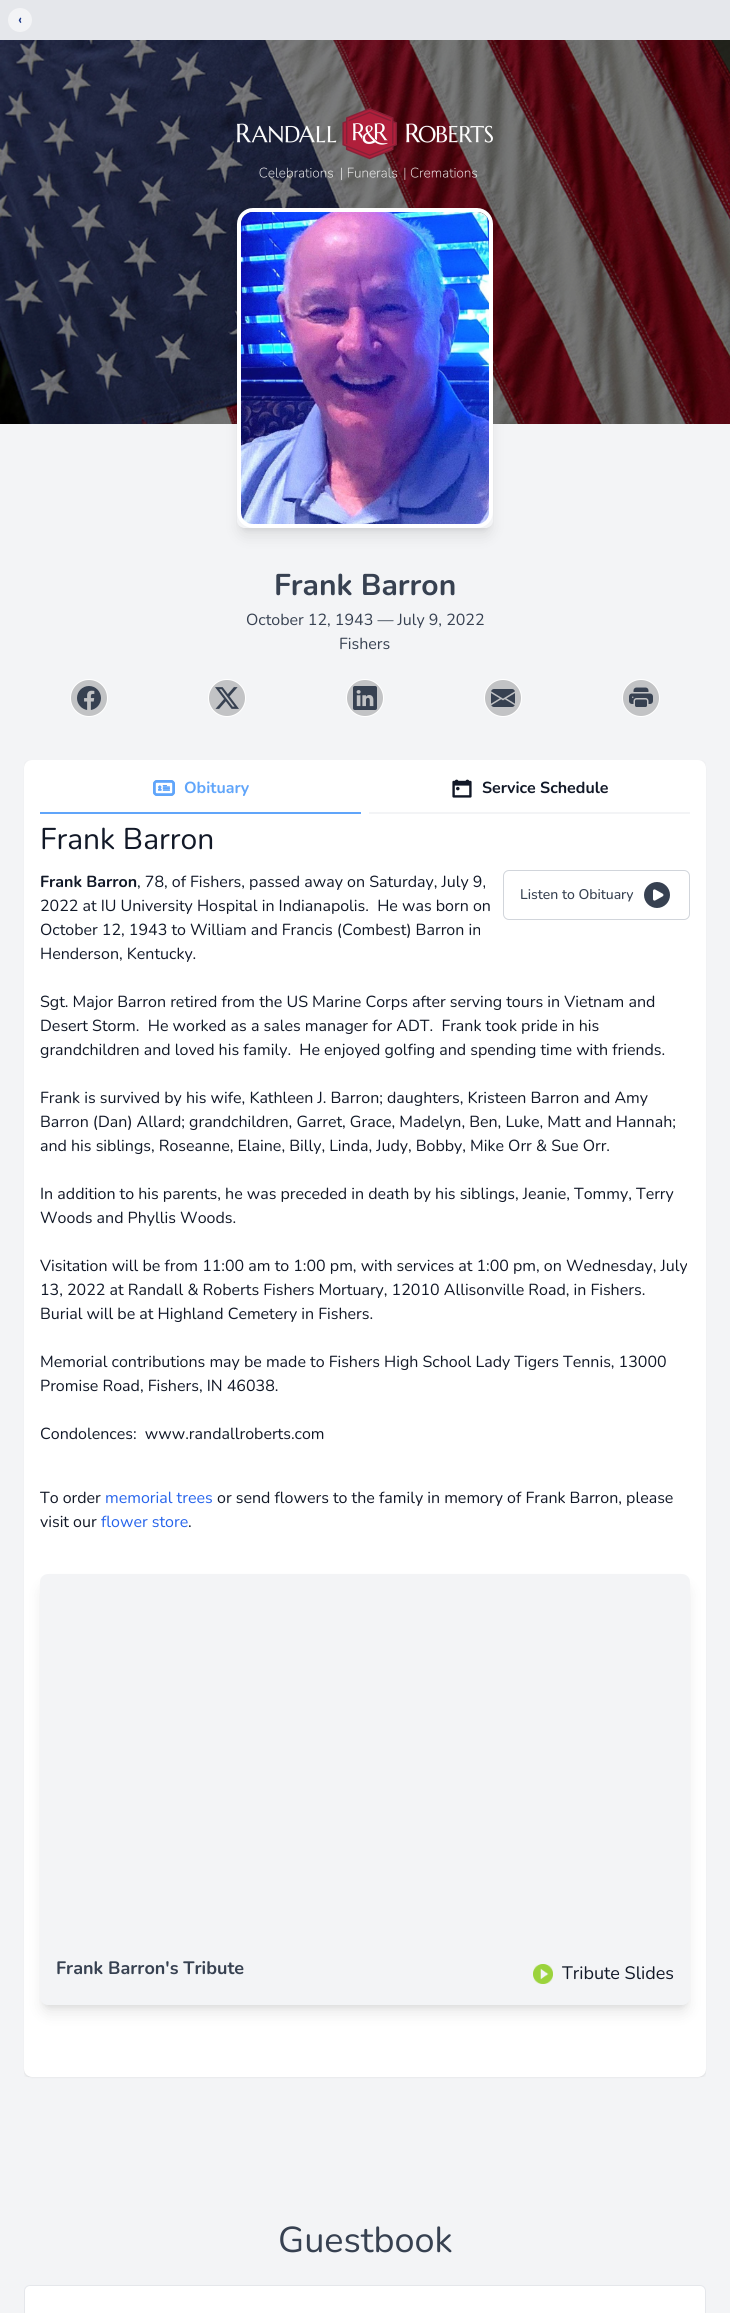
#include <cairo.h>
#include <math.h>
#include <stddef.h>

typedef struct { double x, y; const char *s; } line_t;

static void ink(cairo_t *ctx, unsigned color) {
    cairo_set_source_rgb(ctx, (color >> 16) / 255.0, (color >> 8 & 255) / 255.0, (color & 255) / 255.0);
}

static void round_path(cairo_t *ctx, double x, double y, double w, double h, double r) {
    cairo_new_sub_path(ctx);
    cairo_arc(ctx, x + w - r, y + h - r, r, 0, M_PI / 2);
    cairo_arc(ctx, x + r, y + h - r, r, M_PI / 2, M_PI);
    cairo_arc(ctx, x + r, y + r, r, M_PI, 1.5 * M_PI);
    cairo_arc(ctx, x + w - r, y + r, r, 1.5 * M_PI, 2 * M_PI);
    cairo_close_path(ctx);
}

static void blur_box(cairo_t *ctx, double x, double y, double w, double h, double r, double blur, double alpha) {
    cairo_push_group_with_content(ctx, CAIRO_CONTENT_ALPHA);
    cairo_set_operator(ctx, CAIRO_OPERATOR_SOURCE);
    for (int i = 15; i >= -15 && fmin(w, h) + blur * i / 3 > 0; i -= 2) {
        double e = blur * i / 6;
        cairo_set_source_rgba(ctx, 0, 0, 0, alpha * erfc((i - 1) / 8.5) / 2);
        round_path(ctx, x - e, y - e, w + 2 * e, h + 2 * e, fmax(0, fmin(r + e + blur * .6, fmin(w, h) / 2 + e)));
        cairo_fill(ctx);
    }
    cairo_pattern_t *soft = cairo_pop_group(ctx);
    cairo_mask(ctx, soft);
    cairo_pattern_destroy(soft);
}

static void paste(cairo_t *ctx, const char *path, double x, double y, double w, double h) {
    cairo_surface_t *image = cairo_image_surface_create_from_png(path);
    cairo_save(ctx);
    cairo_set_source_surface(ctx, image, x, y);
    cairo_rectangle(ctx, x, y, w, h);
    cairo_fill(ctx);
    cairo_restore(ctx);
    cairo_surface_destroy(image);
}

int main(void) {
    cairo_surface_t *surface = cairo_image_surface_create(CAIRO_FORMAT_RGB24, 730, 2313);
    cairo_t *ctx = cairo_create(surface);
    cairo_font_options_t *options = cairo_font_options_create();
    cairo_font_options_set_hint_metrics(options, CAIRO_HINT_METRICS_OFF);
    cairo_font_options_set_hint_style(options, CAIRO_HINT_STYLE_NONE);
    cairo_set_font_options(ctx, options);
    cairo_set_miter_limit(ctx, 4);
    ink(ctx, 0xF3F4F6);
    cairo_paint(ctx);
    ink(ctx, 0xE5E7EB);
    cairo_rectangle(ctx, 0, 0, 730, 40);
    cairo_fill(ctx);
    ink(ctx, 0xF3F4F6);
    cairo_arc(ctx, 20, 20, 12, 0, 2 * M_PI);
    cairo_fill(ctx);
    cairo_select_font_face(ctx, "Nunito", CAIRO_FONT_SLANT_NORMAL, CAIRO_FONT_WEIGHT_BOLD);
    cairo_set_font_size(ctx, 14);
    ink(ctx, 0x1E3A8A);
    cairo_move_to(ctx, 18, 24);
    cairo_show_text(ctx, "‹");
    paste(ctx, "media/1.png", 0, 40, 730, 384);
    paste(ctx, "media/2.png", 237, 108, 256, 72);
    cairo_save(ctx);
    cairo_set_fill_rule(ctx, CAIRO_FILL_RULE_EVEN_ODD);
    cairo_new_path(ctx);
    cairo_move_to(ctx, 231, 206);
    cairo_line_to(ctx, 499, 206);
    cairo_line_to(ctx, 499, 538);
    cairo_line_to(ctx, 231, 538);
    cairo_close_path(ctx);
    cairo_move_to(ctx, 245, 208);
    cairo_line_to(ctx, 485, 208);
    cairo_curve_to(ctx, 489.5, 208, 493, 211.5, 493, 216);
    cairo_line_to(ctx, 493, 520);
    cairo_curve_to(ctx, 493, 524.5, 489.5, 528, 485, 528);
    cairo_line_to(ctx, 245, 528);
    cairo_curve_to(ctx, 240.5, 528, 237, 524.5, 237, 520);
    cairo_line_to(ctx, 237, 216);
    cairo_curve_to(ctx, 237, 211.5, 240.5, 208, 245, 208);
    cairo_close_path(ctx);
    cairo_clip(ctx);
    ink(ctx, 0x000000);
    blur_box(ctx, 241, 216, 248, 312, 4, 3, 0.1);
    cairo_restore(ctx);
    cairo_save(ctx);
    cairo_set_fill_rule(ctx, CAIRO_FILL_RULE_EVEN_ODD);
    cairo_new_path(ctx);
    cairo_move_to(ctx, 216, 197);
    cairo_line_to(ctx, 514, 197);
    cairo_line_to(ctx, 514, 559);
    cairo_line_to(ctx, 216, 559);
    cairo_close_path(ctx);
    cairo_move_to(ctx, 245, 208);
    cairo_line_to(ctx, 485, 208);
    cairo_curve_to(ctx, 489.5, 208, 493, 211.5, 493, 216);
    cairo_line_to(ctx, 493, 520);
    cairo_curve_to(ctx, 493, 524.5, 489.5, 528, 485, 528);
    cairo_line_to(ctx, 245, 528);
    cairo_curve_to(ctx, 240.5, 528, 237, 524.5, 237, 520);
    cairo_line_to(ctx, 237, 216);
    cairo_curve_to(ctx, 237, 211.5, 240.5, 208, 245, 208);
    cairo_close_path(ctx);
    cairo_clip(ctx);
    ink(ctx, 0x000000);
    blur_box(ctx, 240, 221, 250, 314, 5, 7.5, 0.1);
    cairo_restore(ctx);
    round_path(ctx, 239, 210, 252, 316, 14);
    ink(ctx, 0xFFFFFF);
    cairo_set_line_width(ctx, 4);
    cairo_stroke(ctx);
    paste(ctx, "media/3.png", 241, 212, 248, 312);
    cairo_set_font_size(ctx, 30);
    ink(ctx, 0x374151);
    cairo_move_to(ctx, 274, 595);
    cairo_show_text(ctx, "Frank Barron");
    cairo_select_font_face(ctx, "Nunito", CAIRO_FONT_SLANT_NORMAL, CAIRO_FONT_WEIGHT_NORMAL);
    cairo_set_font_size(ctx, 16);
    cairo_move_to(ctx, 246, 625);
    cairo_show_text(ctx, "October 12, 1943 — July 9, 2022");
    cairo_move_to(ctx, 339, 649);
    cairo_show_text(ctx, "Fishers");
    cairo_new_path(ctx);
    cairo_arc(ctx, 89, 698, 18.5, 0, 2 * M_PI);
    ink(ctx, 0xFFFFFF);
    cairo_set_line_width(ctx, 1);
    cairo_stroke(ctx);
    cairo_set_source_rgba(ctx, 0, 0, 0, 0.2);
    cairo_arc(ctx, 89, 698, 18, 0, 2 * M_PI);
    cairo_fill(ctx);
    paste(ctx, "media/4.png", 77, 686, 24, 24);
    cairo_arc(ctx, 227, 698, 18.5, 0, 2 * M_PI);
    ink(ctx, 0xFFFFFF);
    cairo_stroke(ctx);
    cairo_set_source_rgba(ctx, 0, 0, 0, 0.2);
    cairo_arc(ctx, 227, 698, 18, 0, 2 * M_PI);
    cairo_fill(ctx);
    paste(ctx, "media/5.png", 215, 687, 24, 22);
    cairo_arc(ctx, 365, 698, 18.5, 0, 2 * M_PI);
    ink(ctx, 0xFFFFFF);
    cairo_stroke(ctx);
    cairo_set_source_rgba(ctx, 0, 0, 0, 0.2);
    cairo_arc(ctx, 365, 698, 18, 0, 2 * M_PI);
    cairo_fill(ctx);
    paste(ctx, "media/6.png", 353, 686, 24, 24);
    cairo_arc(ctx, 503, 698, 18.5, 0, 2 * M_PI);
    ink(ctx, 0xFFFFFF);
    cairo_stroke(ctx);
    cairo_set_source_rgba(ctx, 0, 0, 0, 0.2);
    cairo_arc(ctx, 503, 698, 18, 0, 2 * M_PI);
    cairo_fill(ctx);
    paste(ctx, "media/7.png", 491, 689, 24, 18);
    cairo_arc(ctx, 641, 698, 18.5, 0, 2 * M_PI);
    ink(ctx, 0xFFFFFF);
    cairo_stroke(ctx);
    cairo_set_source_rgba(ctx, 0, 0, 0, 0.2);
    cairo_arc(ctx, 641, 698, 18, 0, 2 * M_PI);
    cairo_fill(ctx);
    paste(ctx, "media/8.png", 629, 687, 24, 20);
    ink(ctx, 0x000000);
    blur_box(ctx, 25, 762, 680, 1315, 7, 1, 0.1);
    cairo_save(ctx);
    cairo_rectangle(ctx, 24, 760, 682, 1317);
    cairo_clip(ctx);
    blur_box(ctx, 24, 761, 682, 1317, 8, 1.5, 0.1);
    cairo_restore(ctx);
    ink(ctx, 0xFFFFFF);
    round_path(ctx, 24, 760, 682, 1317, 8);
    cairo_fill(ctx);
    ink(ctx, 0x60A5FA);
    cairo_rectangle(ctx, 40, 812, 321, 2);
    cairo_fill(ctx);
    paste(ctx, "media/9.png", 153, 780, 22, 16);
    cairo_select_font_face(ctx, "Nunito", CAIRO_FONT_SLANT_NORMAL, CAIRO_FONT_WEIGHT_BOLD);
    cairo_move_to(ctx, 184, 793);
    cairo_show_text(ctx, "Obituary");
    ink(ctx, 0xF3F4F6);
    cairo_rectangle(ctx, 369, 812, 321, 2);
    cairo_fill(ctx);
    paste(ctx, "media/10.png", 452, 779, 20, 19);
    ink(ctx, 0x111827);
    cairo_move_to(ctx, 482, 793);
    cairo_show_text(ctx, "Service Schedule");
    cairo_select_font_face(ctx, "Nunito", CAIRO_FONT_SLANT_NORMAL, CAIRO_FONT_WEIGHT_NORMAL);
    cairo_set_font_size(ctx, 30);
    cairo_move_to(ctx, 40, 849);
    cairo_show_text(ctx, "Frank Barron");
    cairo_select_font_face(ctx, "Nunito", CAIRO_FONT_SLANT_NORMAL, CAIRO_FONT_WEIGHT_BOLD);
    cairo_set_font_size(ctx, 16);
    cairo_move_to(ctx, 40, 887);
    cairo_show_text(ctx, "Frank Barron");
    cairo_select_font_face(ctx, "Nunito", CAIRO_FONT_SLANT_NORMAL, CAIRO_FONT_WEIGHT_NORMAL);
    {
        static const line_t items[] = {
            {137, 887, ", 78, of Fishers, passed away on Saturday, July 9,"},
            {40, 911, "2022 at IU University Hospital in Indianapolis.  He was born on"},
            {40, 935, "October 12, 1943 to William and Francis (Combest) Barron in"},
            {40, 959, "Henderson, Kentucky."},
            {40, 1007, "Sgt. Major Barron retired from the US Marine Corps after serving tours in Vietnam and"},
            {40, 1031, "Desert Storm.  He worked as a sales manager for ADT.  Frank took pride in his"},
            {40, 1055, "grandchildren and loved his family.  He enjoyed golfing and spending time with friends."},
            {40, 1103, "Frank is survived by his wife, Kathleen J. Barron; daughters, Kristeen Barron and Amy"},
            {40, 1127, "Barron (Dan) Allard; grandchildren, Garret, Grace, Madelyn, Ben, Luke, Matt and Hannah;"},
            {40, 1151, "and his siblings, Roseanne, Elaine, Billy, Linda, Judy, Bobby, Mike Orr & Sue Orr."},
            {40, 1199, "In addition to his parents, he was preceded in death by his siblings, Jeanie, Tommy, Terry"},
            {40, 1223, "Woods and Phyllis Woods."},
            {40, 1271, "Visitation will be from 11:00 am to 1:00 pm, with services at 1:00 pm, on Wednesday, July"},
            {40, 1295, "13, 2022 at Randall & Roberts Fishers Mortuary, 12010 Allisonville Road, in Fishers."},
            {40, 1319, "Burial will be at Highland Cemetery in Fishers."},
            {40, 1367, "Memorial contributions may be made to Fishers High School Lady Tigers Tennis, 13000"},
            {40, 1391, "Promise Road, Fishers, IN 46038."},
            {40, 1439, "Condolences:  www.randallroberts.com"},
        };
        for (size_t i = 0; i < sizeof items / sizeof *items; i++) {
            cairo_move_to(ctx, items[i].x, items[i].y);
            cairo_show_text(ctx, items[i].s);
        }
    }
    round_path(ctx, 503.5, 870.5, 186, 49, 5.5);
    ink(ctx, 0xD1D5DB);
    cairo_stroke(ctx);
    cairo_select_font_face(ctx, "Nunito Medium", CAIRO_FONT_SLANT_NORMAL, CAIRO_FONT_WEIGHT_NORMAL);
    cairo_set_font_size(ctx, 14);
    ink(ctx, 0x374151);
    cairo_move_to(ctx, 520, 899);
    cairo_show_text(ctx, "Listen to Obituary");
    paste(ctx, "media/11.png", 644, 882, 26, 26);
    cairo_select_font_face(ctx, "Nunito", CAIRO_FONT_SLANT_NORMAL, CAIRO_FONT_WEIGHT_NORMAL);
    cairo_set_font_size(ctx, 16);
    ink(ctx, 0x111827);
    cairo_move_to(ctx, 40, 1503);
    cairo_show_text(ctx, "To order");
    ink(ctx, 0x2563EB);
    cairo_move_to(ctx, 105, 1503);
    cairo_show_text(ctx, "memorial trees");
    ink(ctx, 0x111827);
    cairo_move_to(ctx, 217, 1503);
    cairo_show_text(ctx, "or send flowers to the family in memory of Frank Barron, please");
    cairo_move_to(ctx, 40, 1527);
    cairo_show_text(ctx, "visit our");
    ink(ctx, 0x2563EB);
    cairo_move_to(ctx, 101, 1527);
    cairo_show_text(ctx, "flower store");
    ink(ctx, 0x111827);
    cairo_move_to(ctx, 188, 1527);
    cairo_show_text(ctx, ".");
    ink(ctx, 0x000000);
    blur_box(ctx, 44, 1582, 642, 423, 4, 3, 0.1);
    blur_box(ctx, 43, 1587, 644, 425, 5, 7.5, 0.1);
    ink(ctx, 0xF3F4F6);
    round_path(ctx, 40, 1574, 650, 431, 8);
    cairo_fill(ctx);
    cairo_select_font_face(ctx, "Nunito", CAIRO_FONT_SLANT_NORMAL, CAIRO_FONT_WEIGHT_BOLD);
    cairo_set_font_size(ctx, 18);
    ink(ctx, 0x374151);
    cairo_move_to(ctx, 56, 1974);
    cairo_show_text(ctx, "Frank Barron's Tribute");
    paste(ctx, "media/12.png", 533, 1964, 20, 20);
    cairo_select_font_face(ctx, "Nunito", CAIRO_FONT_SLANT_NORMAL, CAIRO_FONT_WEIGHT_NORMAL);
    ink(ctx, 0x111827);
    cairo_move_to(ctx, 562, 1979);
    cairo_show_text(ctx, "Tribute Slides");
    cairo_set_font_size(ctx, 36);
    ink(ctx, 0x374151);
    cairo_move_to(ctx, 278, 2252);
    cairo_show_text(ctx, "Guestbook");
    ink(ctx, 0xFFFFFF);
    round_path(ctx, 24.5, 2285.5, 681, 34, 5.5);
    cairo_fill_preserve(ctx);
    ink(ctx, 0xE5E7EB);
    cairo_stroke(ctx);
    cairo_surface_write_to_png(surface, "image.png");
    cairo_font_options_destroy(options);
    cairo_destroy(ctx);
    cairo_surface_destroy(surface);
    return 0;
}
